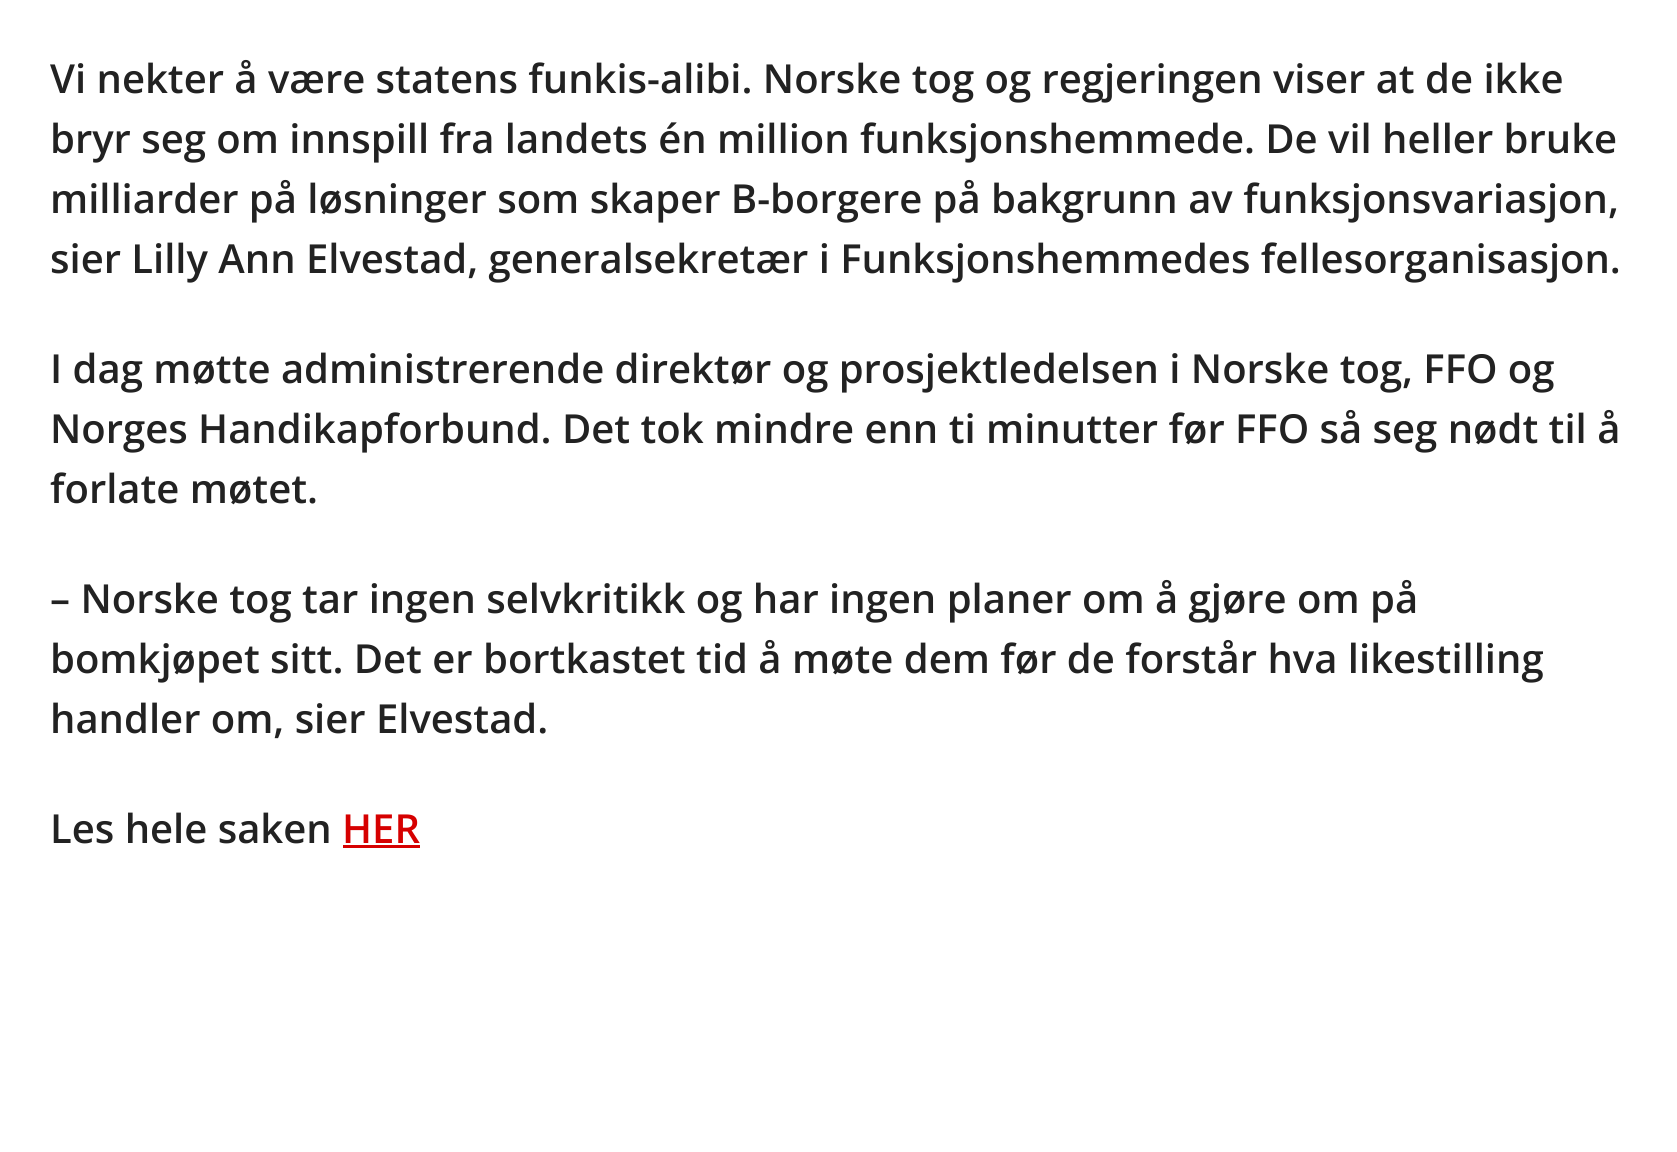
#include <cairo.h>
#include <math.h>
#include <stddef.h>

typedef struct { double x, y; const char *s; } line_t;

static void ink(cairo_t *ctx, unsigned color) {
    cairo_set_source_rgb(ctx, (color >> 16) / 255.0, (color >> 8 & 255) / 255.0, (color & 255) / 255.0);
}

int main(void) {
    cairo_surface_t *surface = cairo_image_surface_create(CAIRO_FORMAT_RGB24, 1677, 1152);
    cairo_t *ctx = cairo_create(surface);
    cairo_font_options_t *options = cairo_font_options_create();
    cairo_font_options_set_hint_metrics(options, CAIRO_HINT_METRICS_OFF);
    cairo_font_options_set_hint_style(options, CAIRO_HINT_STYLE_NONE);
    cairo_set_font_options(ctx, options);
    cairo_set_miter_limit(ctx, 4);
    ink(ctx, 0xFFFFFF);
    cairo_paint(ctx);
    cairo_select_font_face(ctx, "Open Sans SemiBold", CAIRO_FONT_SLANT_NORMAL, CAIRO_FONT_WEIGHT_NORMAL);
    cairo_set_font_size(ctx, 40);
    ink(ctx, 0x222222);
    {
        static const line_t items[] = {
            {50, 93, "Vi nekter å være statens funkis-alibi. Norske tog og regjeringen viser at de ikke"},
            {50, 153, "bryr seg om innspill fra landets én million funksjonshemmede. De vil heller bruke"},
            {50, 213, "milliarder på løsninger som skaper B-borgere på bakgrunn av funksjonsvariasjon,"},
            {50, 273, "sier Lilly Ann Elvestad, generalsekretær i Funksjonshemmedes fellesorganisasjon."},
            {50, 383, "I dag møtte administrerende direktør og prosjektledelsen i Norske tog, FFO og"},
            {50, 443, "Norges Handikapforbund. Det tok mindre enn ti minutter før FFO så seg nødt til å"},
            {50, 503, "forlate møtet."},
            {50, 613, "– Norske tog tar ingen selvkritikk og har ingen planer om å gjøre om på"},
            {50, 673, "bomkjøpet sitt. Det er bortkastet tid å møte dem før de forstår hva likestilling"},
            {50, 733, "handler om, sier Elvestad."},
            {50, 843, "Les hele saken"},
        };
        for (size_t i = 0; i < sizeof items / sizeof *items; i++) {
            cairo_move_to(ctx, items[i].x, items[i].y);
            cairo_show_text(ctx, items[i].s);
        }
    }
    ink(ctx, 0xD60000);
    cairo_move_to(ctx, 342, 843);
    cairo_show_text(ctx, "HER");
    cairo_rectangle(ctx, 343, 845, 77, 3);
    cairo_fill(ctx);
    cairo_surface_write_to_png(surface, "image.png");
    cairo_font_options_destroy(options);
    cairo_destroy(ctx);
    cairo_surface_destroy(surface);
    return 0;
}
